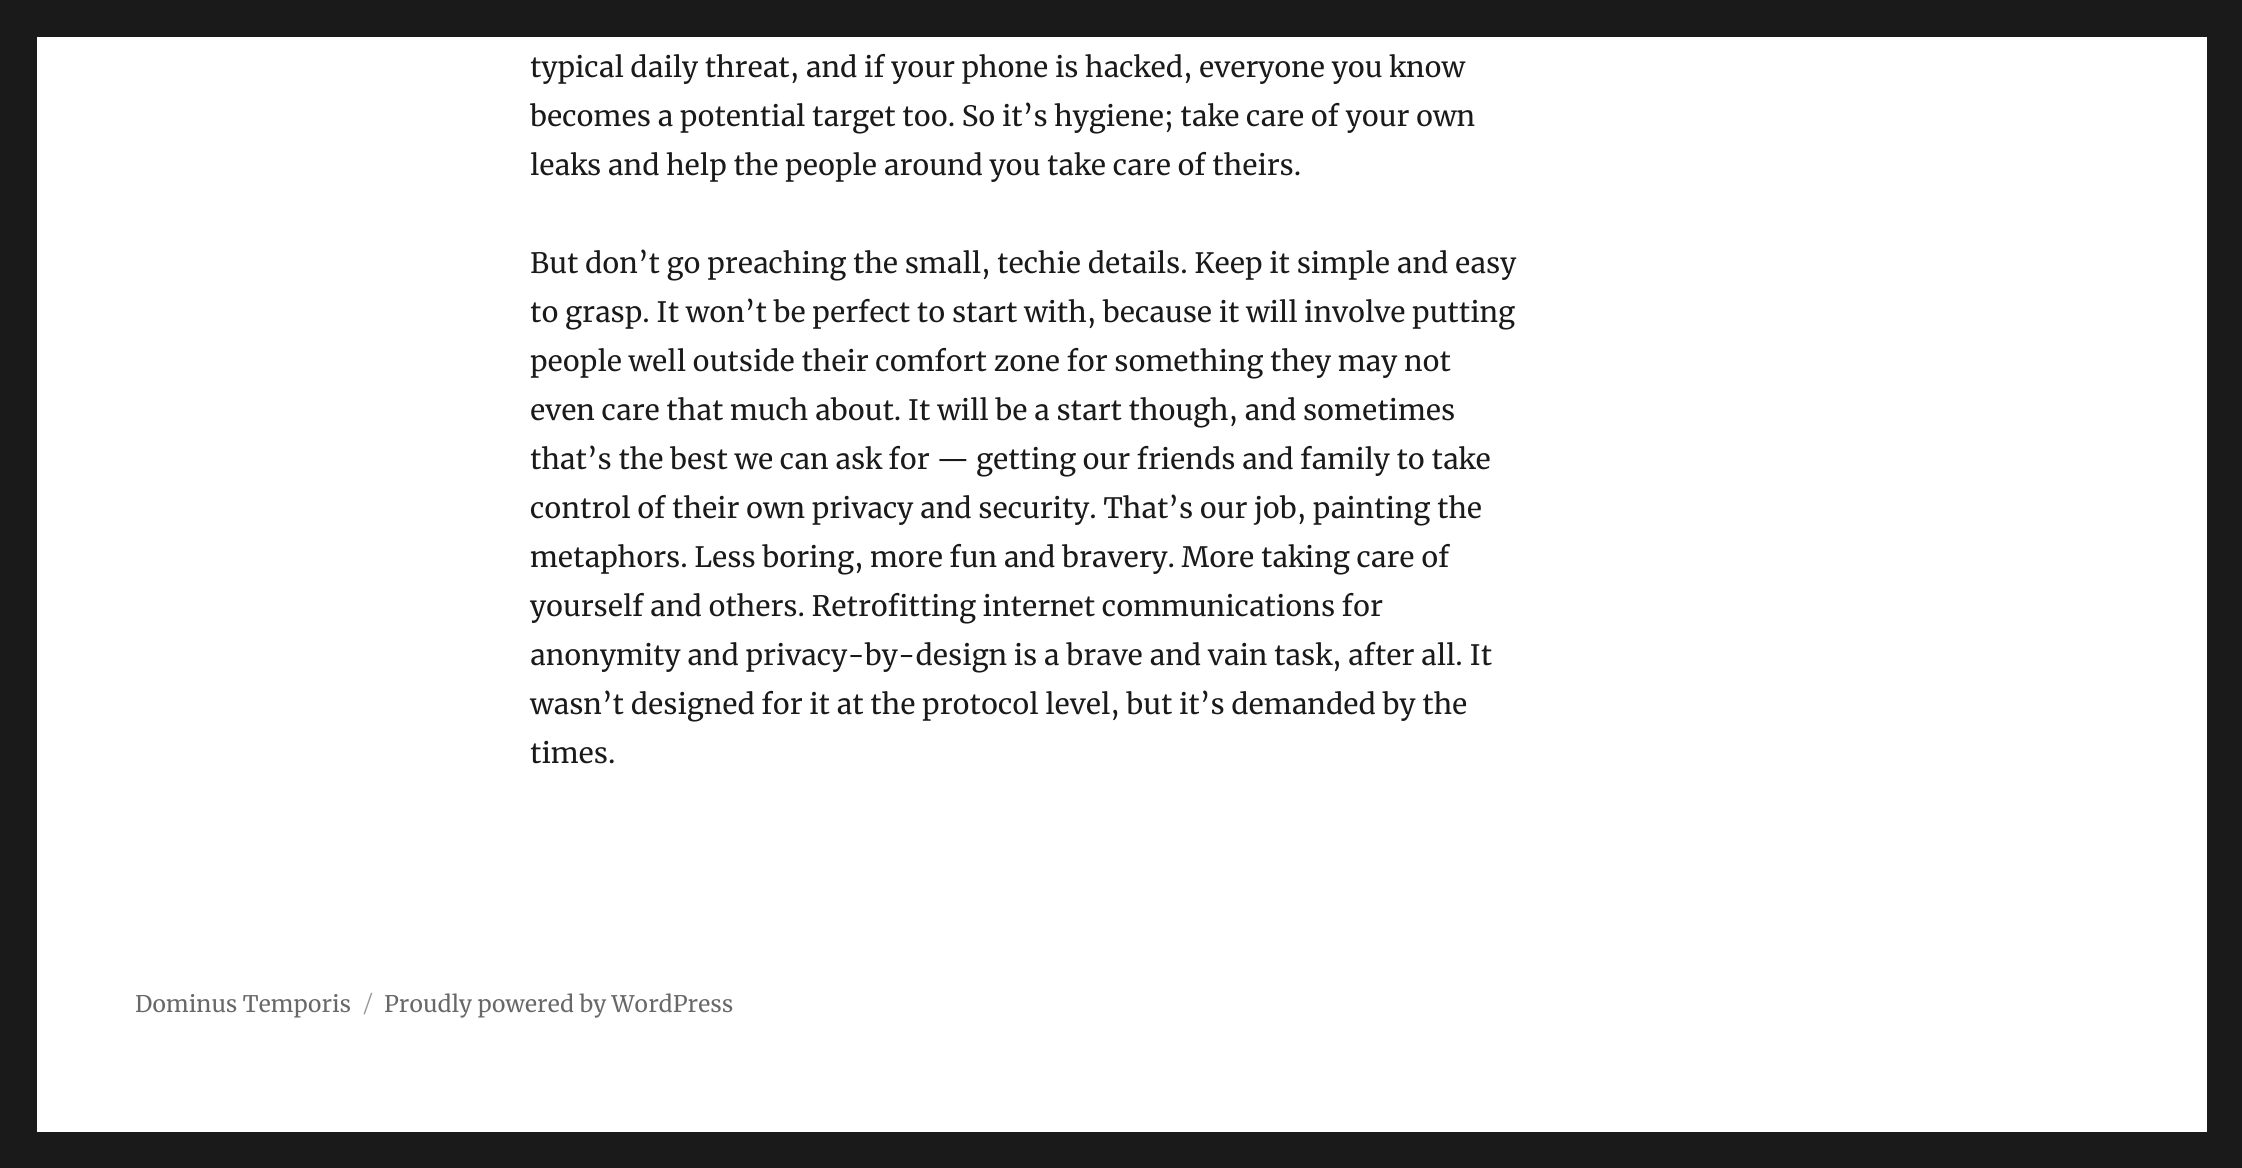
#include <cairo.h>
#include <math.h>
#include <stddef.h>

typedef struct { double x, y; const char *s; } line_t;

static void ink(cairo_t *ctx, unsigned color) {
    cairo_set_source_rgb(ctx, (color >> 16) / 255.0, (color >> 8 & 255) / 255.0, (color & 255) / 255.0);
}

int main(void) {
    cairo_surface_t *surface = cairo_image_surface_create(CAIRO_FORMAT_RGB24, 2242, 1168);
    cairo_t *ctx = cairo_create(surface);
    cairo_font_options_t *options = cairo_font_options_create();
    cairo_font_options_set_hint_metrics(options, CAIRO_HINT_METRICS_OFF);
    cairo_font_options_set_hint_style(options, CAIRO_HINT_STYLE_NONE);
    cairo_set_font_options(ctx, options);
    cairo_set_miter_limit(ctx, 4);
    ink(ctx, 0x1A1A1A);
    cairo_paint(ctx);
    ink(ctx, 0xFFFFFF);
    cairo_rectangle(ctx, 37, 37, 2170, 1095);
    cairo_fill(ctx);
    cairo_select_font_face(ctx, "Merriweather", CAIRO_FONT_SLANT_NORMAL, CAIRO_FONT_WEIGHT_NORMAL);
    cairo_set_font_size(ctx, 28);
    ink(ctx, 0x1A1A1A);
    {
        static const line_t items[] = {
            {530, 77, "typical daily threat, and if your phone is hacked, everyone you know"},
            {530, 126, "becomes a potential target too. So it’s hygiene; take care of your own"},
            {530, 175, "leaks and help the people around you take care of theirs."},
            {530, 273, "But don’t go preaching the small, techie details. Keep it simple and easy"},
            {530, 322, "to grasp. It won’t be perfect to start with, because it will involve putting"},
            {530, 371, "people well outside their comfort zone for something they may not"},
            {530, 420, "even care that much about. It will be a start though, and sometimes"},
            {530, 469, "that’s the best we can ask for — getting our friends and family to take"},
            {530, 518, "control of their own privacy and security. That’s our job, painting the"},
            {530, 567, "metaphors. Less boring, more fun and bravery. More taking care of"},
            {530, 616, "yourself and others. Retrofitting internet communications for"},
            {530, 665, "anonymity and privacy-by-design is a brave and vain task, after all. It"},
            {530, 714, "wasn’t designed for it at the protocol level, but it’s demanded by the"},
            {530, 763, "times."},
        };
        for (size_t i = 0; i < sizeof items / sizeof *items; i++) {
            cairo_move_to(ctx, items[i].x, items[i].y);
            cairo_show_text(ctx, items[i].s);
        }
    }
    cairo_set_font_size(ctx, 22.75);
    ink(ctx, 0x686868);
    cairo_move_to(ctx, 135, 1012);
    cairo_show_text(ctx, "Dominus Temporis");
    cairo_select_font_face(ctx, "Montserrat Thin", CAIRO_FONT_SLANT_NORMAL, CAIRO_FONT_WEIGHT_NORMAL);
    ink(ctx, 0x959595);
    cairo_move_to(ctx, 364, 1012);
    cairo_show_text(ctx, "/");
    cairo_select_font_face(ctx, "Merriweather", CAIRO_FONT_SLANT_NORMAL, CAIRO_FONT_WEIGHT_NORMAL);
    ink(ctx, 0x686868);
    cairo_move_to(ctx, 384, 1012);
    cairo_show_text(ctx, "Proudly powered by WordPress");
    cairo_surface_write_to_png(surface, "image.png");
    cairo_font_options_destroy(options);
    cairo_destroy(ctx);
    cairo_surface_destroy(surface);
    return 0;
}
